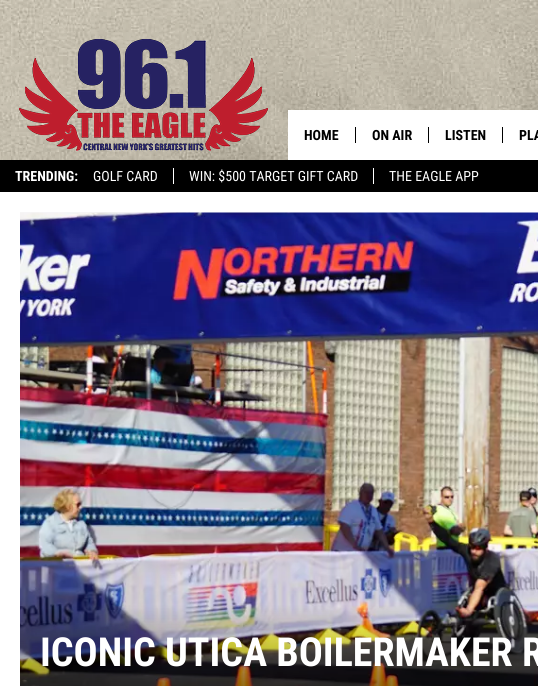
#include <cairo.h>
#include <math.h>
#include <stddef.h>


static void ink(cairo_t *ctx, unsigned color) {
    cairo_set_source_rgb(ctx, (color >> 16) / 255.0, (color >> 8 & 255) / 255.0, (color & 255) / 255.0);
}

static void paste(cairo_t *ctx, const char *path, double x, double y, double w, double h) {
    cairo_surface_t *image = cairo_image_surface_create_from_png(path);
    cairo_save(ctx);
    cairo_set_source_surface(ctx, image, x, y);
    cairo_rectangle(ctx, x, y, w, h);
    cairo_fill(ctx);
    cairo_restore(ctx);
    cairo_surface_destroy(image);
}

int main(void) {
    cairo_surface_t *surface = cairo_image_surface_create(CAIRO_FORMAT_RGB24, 538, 686);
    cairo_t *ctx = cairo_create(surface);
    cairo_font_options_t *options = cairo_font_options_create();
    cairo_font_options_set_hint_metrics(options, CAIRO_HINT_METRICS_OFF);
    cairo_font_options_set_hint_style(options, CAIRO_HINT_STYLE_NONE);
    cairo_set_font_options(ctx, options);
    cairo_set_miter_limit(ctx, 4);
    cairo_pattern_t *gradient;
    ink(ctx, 0xFFFFFF);
    cairo_paint(ctx);
    paste(ctx, "media/1.png", 0, 0, 538, 160);
    paste(ctx, "media/2.png", 19, 39, 249, 112);
    ink(ctx, 0xFFFFFF);
    cairo_rectangle(ctx, 288, 110, 250, 50);
    cairo_fill(ctx);
    cairo_select_font_face(ctx, "Roboto Condensed", CAIRO_FONT_SLANT_NORMAL, CAIRO_FONT_WEIGHT_BOLD);
    cairo_set_font_size(ctx, 14);
    ink(ctx, 0x000000);
    cairo_move_to(ctx, 304, 140);
    cairo_show_text(ctx, "HOME");
    cairo_rectangle(ctx, 355, 127, 1, 16);
    cairo_fill(ctx);
    cairo_move_to(ctx, 372, 140);
    cairo_show_text(ctx, "ON AIR");
    cairo_rectangle(ctx, 428, 127, 1, 16);
    cairo_fill(ctx);
    cairo_move_to(ctx, 445, 140);
    cairo_show_text(ctx, "LISTEN");
    cairo_rectangle(ctx, 502, 127, 1, 16);
    cairo_fill(ctx);
    cairo_move_to(ctx, 519, 140);
    cairo_show_text(ctx, "PLA");
    cairo_rectangle(ctx, 0, 160, 538, 32);
    cairo_fill(ctx);
    ink(ctx, 0xFFFFFF);
    cairo_move_to(ctx, 15, 181);
    cairo_show_text(ctx, "TRENDING:");
    cairo_select_font_face(ctx, "Roboto Condensed", CAIRO_FONT_SLANT_NORMAL, CAIRO_FONT_WEIGHT_NORMAL);
    cairo_move_to(ctx, 93, 181);
    cairo_show_text(ctx, "GOLF CARD");
    cairo_move_to(ctx, 189, 181);
    cairo_show_text(ctx, "WIN: $500 TARGET GIFT CARD");
    cairo_rectangle(ctx, 173, 168, 1, 16);
    cairo_fill(ctx);
    cairo_move_to(ctx, 389, 181);
    cairo_show_text(ctx, "THE EAGLE APP");
    cairo_rectangle(ctx, 373, 168, 1, 16);
    cairo_fill(ctx);
    gradient = cairo_pattern_create_radial(483, 521, 0, 483, 521, 556);
    cairo_pattern_add_color_stop_rgba(gradient, 0.4, 1, 1, 1, 1);
    cairo_pattern_add_color_stop_rgba(gradient, 1, 0.965, 0.965, 0.969, 1);
    cairo_set_source(ctx, gradient);
    cairo_pattern_destroy(gradient);
    cairo_rectangle(ctx, 20, 212, 399, 1);
    cairo_fill(ctx);
    paste(ctx, "media/3.png", 20, 212, 518, 474);
    cairo_select_font_face(ctx, "Roboto Condensed", CAIRO_FONT_SLANT_NORMAL, CAIRO_FONT_WEIGHT_BOLD);
    cairo_set_font_size(ctx, 40);
    ink(ctx, 0xFFFFFF);
    cairo_move_to(ctx, 40, 666);
    cairo_show_text(ctx, "ICONIC UTICA BOILERMAKER R");
    cairo_surface_write_to_png(surface, "image.png");
    cairo_font_options_destroy(options);
    cairo_destroy(ctx);
    cairo_surface_destroy(surface);
    return 0;
}
